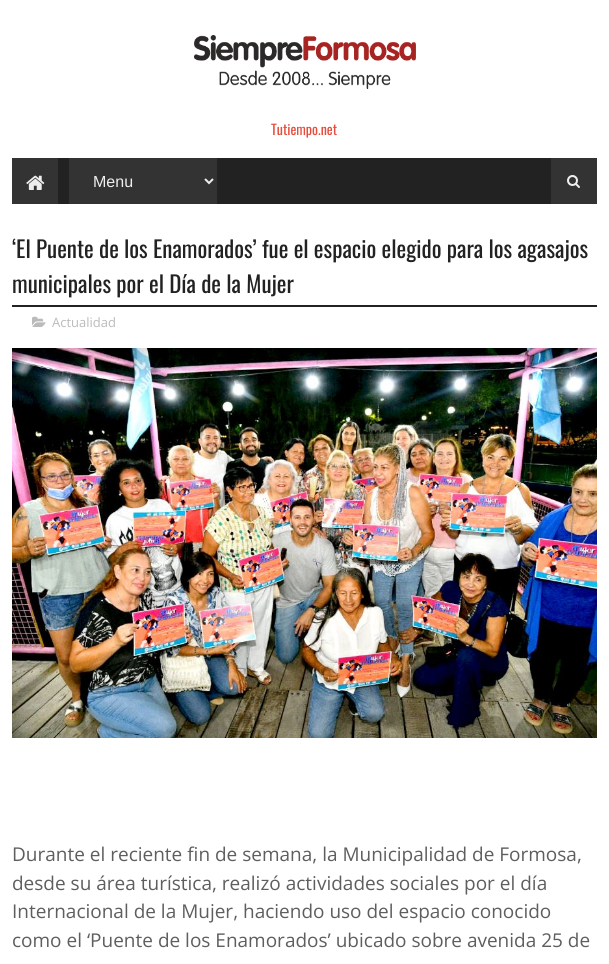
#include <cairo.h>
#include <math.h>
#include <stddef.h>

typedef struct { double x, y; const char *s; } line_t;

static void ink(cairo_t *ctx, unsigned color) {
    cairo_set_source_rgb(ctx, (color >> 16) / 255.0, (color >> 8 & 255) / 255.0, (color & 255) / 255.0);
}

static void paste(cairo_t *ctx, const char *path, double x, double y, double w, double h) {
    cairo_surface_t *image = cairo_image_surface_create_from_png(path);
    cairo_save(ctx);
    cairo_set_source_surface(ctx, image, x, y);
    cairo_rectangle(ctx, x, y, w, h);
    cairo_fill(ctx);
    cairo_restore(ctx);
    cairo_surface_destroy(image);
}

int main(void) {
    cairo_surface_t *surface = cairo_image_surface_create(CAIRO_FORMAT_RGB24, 609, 964);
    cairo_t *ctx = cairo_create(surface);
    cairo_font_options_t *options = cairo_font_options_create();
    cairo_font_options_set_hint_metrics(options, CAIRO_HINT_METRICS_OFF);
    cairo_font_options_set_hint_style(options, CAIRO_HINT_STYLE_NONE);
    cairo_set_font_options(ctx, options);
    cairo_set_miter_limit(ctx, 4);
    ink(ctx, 0xFFFFFF);
    cairo_paint(ctx);
    paste(ctx, "media/1.png", 194, 35, 222, 54);
    cairo_select_font_face(ctx, "Oswald", CAIRO_FONT_SLANT_NORMAL, CAIRO_FONT_WEIGHT_NORMAL);
    cairo_set_font_size(ctx, 14);
    ink(ctx, 0xE74C3C);
    cairo_move_to(ctx, 271, 135);
    cairo_show_text(ctx, "Tutiempo.net");
    ink(ctx, 0x222222);
    cairo_rectangle(ctx, 58, 158, 493, 46);
    cairo_fill(ctx);
    ink(ctx, 0x333333);
    cairo_rectangle(ctx, 12, 158, 46, 46);
    cairo_fill(ctx);
    paste(ctx, "media/2.png", 26, 175, 19, 15);
    cairo_rectangle(ctx, 69, 158, 148, 46);
    cairo_fill(ctx);
    cairo_new_path(ctx);
    cairo_move_to(ctx, 205, 179);
    cairo_line_to(ctx, 209, 183);
    cairo_line_to(ctx, 213, 179);
    ink(ctx, 0xEEEEEE);
    cairo_stroke(ctx);
    cairo_select_font_face(ctx, "Liberation Sans", CAIRO_FONT_SLANT_NORMAL, CAIRO_FONT_WEIGHT_NORMAL);
    cairo_set_font_size(ctx, 16);
    cairo_move_to(ctx, 93, 187);
    cairo_show_text(ctx, "Menu");
    ink(ctx, 0x333333);
    cairo_rectangle(ctx, 551, 158, 46, 46);
    cairo_fill(ctx);
    paste(ctx, "media/3.png", 567, 175, 13, 13);
    ink(ctx, 0x222222);
    cairo_rectangle(ctx, 12, 305, 585, 2);
    cairo_fill(ctx);
    cairo_select_font_face(ctx, "Oswald", CAIRO_FONT_SLANT_NORMAL, CAIRO_FONT_WEIGHT_NORMAL);
    cairo_set_font_size(ctx, 23);
    cairo_move_to(ctx, 12, 258);
    cairo_show_text(ctx, "‘El Puente de los Enamorados’ fue el espacio elegido para los agasajos");
    cairo_move_to(ctx, 12, 293);
    cairo_show_text(ctx, "municipales por el Día de la Mujer");
    paste(ctx, "media/4.png", 32, 316, 14, 11);
    cairo_select_font_face(ctx, "Open Sans", CAIRO_FONT_SLANT_NORMAL, CAIRO_FONT_WEIGHT_NORMAL);
    cairo_set_font_size(ctx, 13);
    ink(ctx, 0xBBBBBB);
    cairo_move_to(ctx, 52, 327);
    cairo_show_text(ctx, "Actualidad");
    paste(ctx, "media/5.png", 12, 348, 585, 390);
    cairo_set_font_size(ctx, 19);
    ink(ctx, 0x5E5E5E);
    {
        static const line_t items[] = {
            {12, 861, "Durante el reciente fin de semana, la Municipalidad de Formosa,"},
            {12, 890, "desde su área turística, realizó actividades sociales por el día"},
            {12, 918, "Internacional de la Mujer, haciendo uso del espacio conocido"},
            {12, 947, "como el ‘Puente de los Enamorados’ ubicado sobre avenida 25 de"},
        };
        for (size_t i = 0; i < sizeof items / sizeof *items; i++) {
            cairo_move_to(ctx, items[i].x, items[i].y);
            cairo_show_text(ctx, items[i].s);
        }
    }
    cairo_surface_write_to_png(surface, "image.png");
    cairo_font_options_destroy(options);
    cairo_destroy(ctx);
    cairo_surface_destroy(surface);
    return 0;
}
